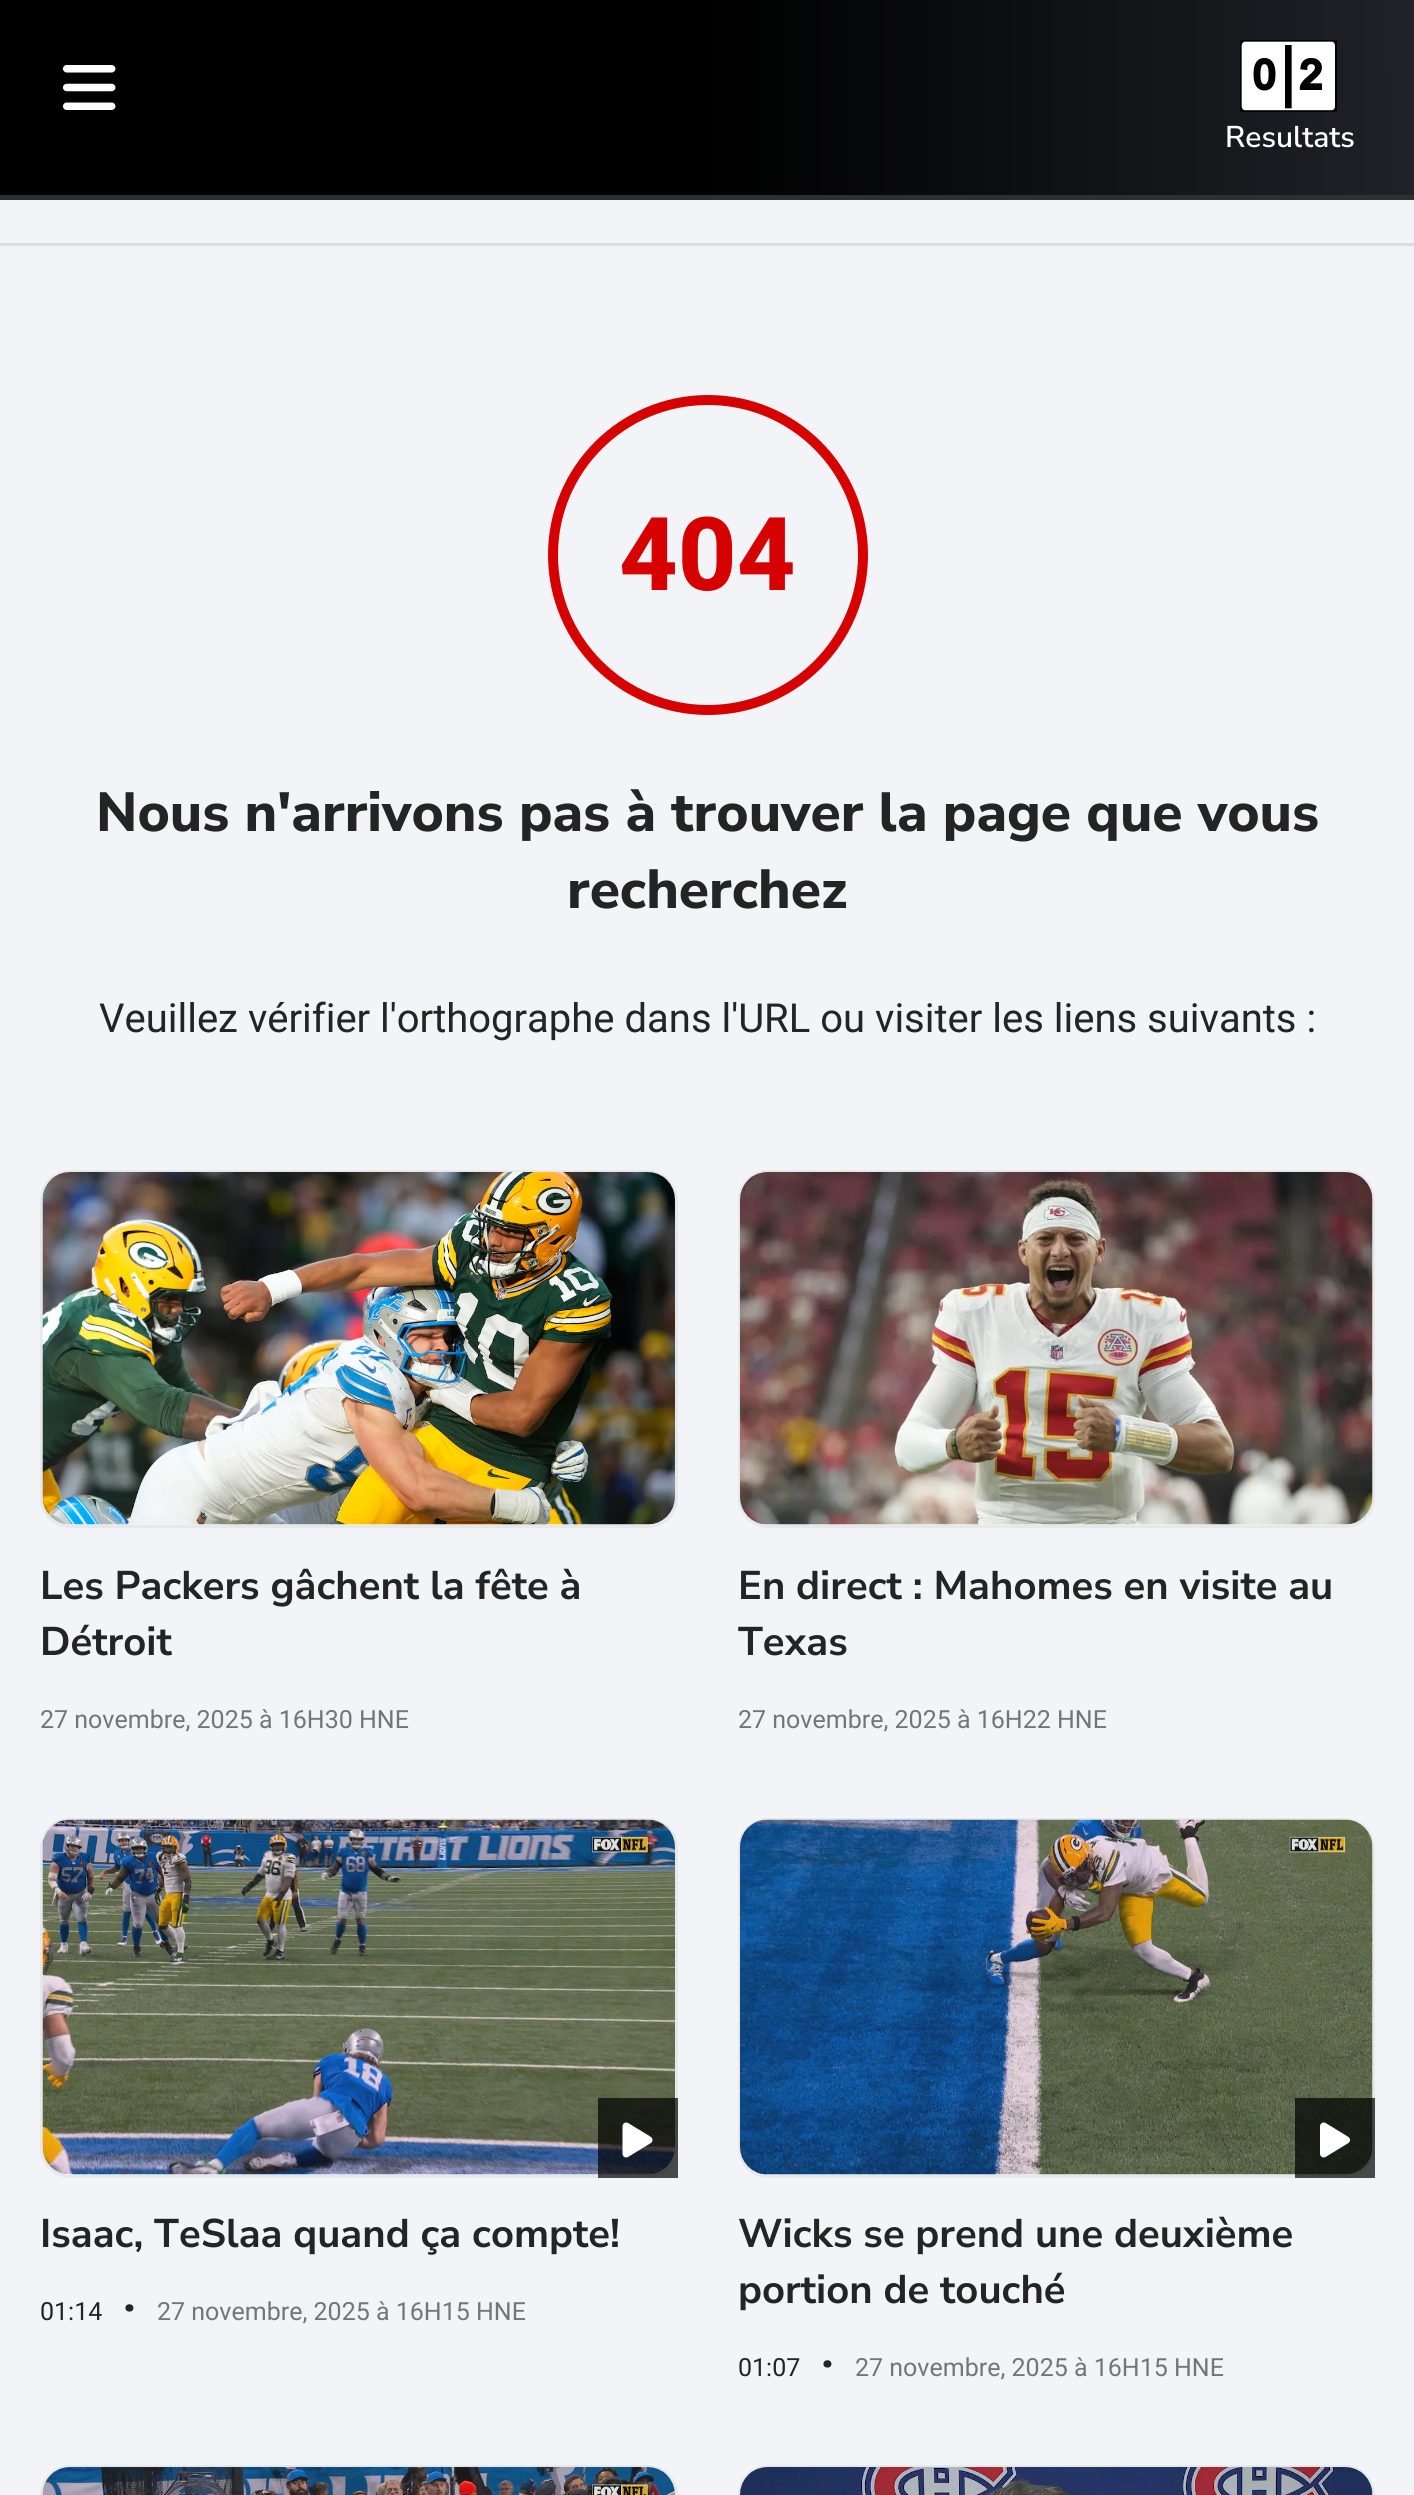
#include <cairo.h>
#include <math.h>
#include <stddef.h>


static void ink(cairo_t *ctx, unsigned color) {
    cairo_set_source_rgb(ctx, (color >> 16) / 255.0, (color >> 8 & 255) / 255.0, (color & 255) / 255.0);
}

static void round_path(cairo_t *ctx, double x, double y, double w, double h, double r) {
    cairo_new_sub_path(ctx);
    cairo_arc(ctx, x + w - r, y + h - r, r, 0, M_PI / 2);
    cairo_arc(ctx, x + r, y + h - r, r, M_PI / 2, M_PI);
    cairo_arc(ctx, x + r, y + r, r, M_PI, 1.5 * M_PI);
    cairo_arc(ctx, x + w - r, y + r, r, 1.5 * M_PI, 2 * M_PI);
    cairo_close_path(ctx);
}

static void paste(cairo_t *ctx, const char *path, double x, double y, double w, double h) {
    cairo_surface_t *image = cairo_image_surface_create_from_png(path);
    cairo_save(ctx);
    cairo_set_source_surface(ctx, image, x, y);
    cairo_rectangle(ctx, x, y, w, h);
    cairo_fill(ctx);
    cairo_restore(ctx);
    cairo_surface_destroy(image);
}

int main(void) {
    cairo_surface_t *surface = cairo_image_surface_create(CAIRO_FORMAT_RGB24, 1414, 2495);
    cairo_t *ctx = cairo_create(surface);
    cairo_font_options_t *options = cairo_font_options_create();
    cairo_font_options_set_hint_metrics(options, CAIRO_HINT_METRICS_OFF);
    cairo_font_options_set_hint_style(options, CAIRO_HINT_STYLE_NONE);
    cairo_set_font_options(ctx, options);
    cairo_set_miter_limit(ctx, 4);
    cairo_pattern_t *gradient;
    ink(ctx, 0xF2F4F7);
    cairo_paint(ctx);
    gradient = cairo_pattern_create_linear(0, 98, 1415, 97);
    cairo_pattern_add_color_stop_rgba(gradient, 0.5, 0, 0, 0, 1);
    cairo_pattern_add_color_stop_rgba(gradient, 1, 0.122, 0.133, 0.157, 1);
    cairo_set_source(ctx, gradient);
    cairo_pattern_destroy(gradient);
    cairo_rectangle(ctx, 0, 0, 1414, 195);
    cairo_fill(ctx);
    ink(ctx, 0x2F2F2F);
    cairo_rectangle(ctx, 0, 195, 1414, 5);
    cairo_fill(ctx);
    paste(ctx, "media/1.png", 62, 65, 54, 45);
    paste(ctx, "media/2.png", 1240, 40, 97, 72);
    cairo_select_font_face(ctx, "Nunito Sans SemiBold", CAIRO_FONT_SLANT_NORMAL, CAIRO_FONT_WEIGHT_NORMAL);
    cairo_set_font_size(ctx, 30);
    ink(ctx, 0xFFFFFF);
    cairo_move_to(ctx, 1225, 147);
    cairo_show_text(ctx, "Resultats");
    ink(ctx, 0xDDDDDD);
    cairo_rectangle(ctx, 0, 243, 1414, 3);
    cairo_fill(ctx);
    cairo_arc(ctx, 708, 555, 155, 0, 2 * M_PI);
    ink(ctx, 0xD70000);
    cairo_set_line_width(ctx, 10);
    cairo_stroke(ctx);
    cairo_select_font_face(ctx, "Roboto ExtraBold", CAIRO_FONT_SLANT_NORMAL, CAIRO_FONT_WEIGHT_NORMAL);
    cairo_set_font_size(ctx, 102);
    cairo_move_to(ctx, 619, 590);
    cairo_show_text(ctx, "404");
    cairo_select_font_face(ctx, "Nunito Sans ExtraBold", CAIRO_FONT_SLANT_NORMAL, CAIRO_FONT_WEIGHT_NORMAL);
    cairo_set_font_size(ctx, 55);
    ink(ctx, 0x242424);
    cairo_move_to(ctx, 96, 831);
    cairo_show_text(ctx, "Nous n'arrivons pas à trouver la page que vous");
    cairo_move_to(ctx, 567, 908);
    cairo_show_text(ctx, "recherchez");
    cairo_select_font_face(ctx, "Roboto", CAIRO_FONT_SLANT_NORMAL, CAIRO_FONT_WEIGHT_NORMAL);
    cairo_set_font_size(ctx, 40);
    cairo_move_to(ctx, 99, 1032);
    cairo_show_text(ctx, "Veuillez vérifier l'orthographe dans l'URL ou visiter les liens suivants :");
    round_path(ctx, 41.5, 1171.5, 635, 355, 28.5);
    ink(ctx, 0xE6E8EA);
    cairo_set_line_width(ctx, 3);
    cairo_stroke(ctx);
    paste(ctx, "media/3.png", 42, 1172, 633, 353);
    cairo_select_font_face(ctx, "Nunito Sans", CAIRO_FONT_SLANT_NORMAL, CAIRO_FONT_WEIGHT_BOLD);
    ink(ctx, 0x242424);
    cairo_move_to(ctx, 40, 1599);
    cairo_show_text(ctx, "Les Packers gâchent la fête à");
    cairo_move_to(ctx, 40, 1655);
    cairo_show_text(ctx, "Détroit");
    cairo_select_font_face(ctx, "Roboto", CAIRO_FONT_SLANT_NORMAL, CAIRO_FONT_WEIGHT_NORMAL);
    cairo_set_font_size(ctx, 25);
    ink(ctx, 0x757575);
    cairo_move_to(ctx, 40, 1728);
    cairo_show_text(ctx, "27 novembre, 2025 à 16H30 HNE");
    round_path(ctx, 739.5, 1171.5, 634, 355, 28.5);
    ink(ctx, 0xE6E8EA);
    cairo_stroke(ctx);
    paste(ctx, "media/4.png", 740, 1172, 633, 353);
    cairo_select_font_face(ctx, "Nunito Sans", CAIRO_FONT_SLANT_NORMAL, CAIRO_FONT_WEIGHT_BOLD);
    cairo_set_font_size(ctx, 40);
    ink(ctx, 0x242424);
    cairo_move_to(ctx, 738, 1599);
    cairo_show_text(ctx, "En direct : Mahomes en visite au");
    cairo_save(ctx);
    cairo_rectangle(ctx, 738, 1558, 637, 112);
    cairo_clip(ctx);
    cairo_move_to(ctx, 738, 1655);
    cairo_show_text(ctx, "Texas");
    cairo_restore(ctx);
    cairo_select_font_face(ctx, "Roboto", CAIRO_FONT_SLANT_NORMAL, CAIRO_FONT_WEIGHT_NORMAL);
    cairo_set_font_size(ctx, 25);
    ink(ctx, 0x757575);
    cairo_move_to(ctx, 738, 1728);
    cairo_show_text(ctx, "27 novembre, 2025 à 16H22 HNE");
    round_path(ctx, 41.5, 1819.5, 635, 357, 28.5);
    ink(ctx, 0xE6E8EA);
    cairo_stroke(ctx);
    paste(ctx, "media/5.png", 42, 1819, 633, 356);
    cairo_set_source_rgba(ctx, 0, 0, 0, 0.7);
    cairo_rectangle(ctx, 598, 2098, 80, 80);
    cairo_fill(ctx);
    paste(ctx, "media/6.png", 622, 2122, 31, 36);
    cairo_select_font_face(ctx, "Nunito Sans", CAIRO_FONT_SLANT_NORMAL, CAIRO_FONT_WEIGHT_BOLD);
    cairo_set_font_size(ctx, 40);
    ink(ctx, 0x242424);
    cairo_move_to(ctx, 40, 2247);
    cairo_show_text(ctx, "Isaac, TeSlaa quand ça compte!");
    cairo_select_font_face(ctx, "Roboto", CAIRO_FONT_SLANT_NORMAL, CAIRO_FONT_WEIGHT_NORMAL);
    cairo_set_font_size(ctx, 25);
    cairo_move_to(ctx, 40, 2320);
    cairo_show_text(ctx, "01:14");
    cairo_select_font_face(ctx, "Roboto", CAIRO_FONT_SLANT_NORMAL, CAIRO_FONT_WEIGHT_BOLD);
    cairo_set_font_size(ctx, 50);
    cairo_move_to(ctx, 122, 2325);
    cairo_show_text(ctx, "·");
    cairo_select_font_face(ctx, "Roboto", CAIRO_FONT_SLANT_NORMAL, CAIRO_FONT_WEIGHT_NORMAL);
    cairo_set_font_size(ctx, 25);
    ink(ctx, 0x757575);
    cairo_move_to(ctx, 157, 2320);
    cairo_show_text(ctx, "27 novembre, 2025 à 16H15 HNE");
    round_path(ctx, 739.5, 1819.5, 634, 357, 28.5);
    ink(ctx, 0xE6E8EA);
    cairo_stroke(ctx);
    paste(ctx, "media/7.png", 740, 1819, 633, 356);
    cairo_set_source_rgba(ctx, 0, 0, 0, 0.7);
    cairo_rectangle(ctx, 1295, 2098, 80, 80);
    cairo_fill(ctx);
    paste(ctx, "media/8.png", 1320, 2122, 30, 36);
    cairo_select_font_face(ctx, "Nunito Sans", CAIRO_FONT_SLANT_NORMAL, CAIRO_FONT_WEIGHT_BOLD);
    cairo_set_font_size(ctx, 40);
    ink(ctx, 0x242424);
    cairo_move_to(ctx, 738, 2247);
    cairo_show_text(ctx, "Wicks se prend une deuxième");
    cairo_move_to(ctx, 738, 2303);
    cairo_show_text(ctx, "portion de touché");
    cairo_select_font_face(ctx, "Roboto", CAIRO_FONT_SLANT_NORMAL, CAIRO_FONT_WEIGHT_NORMAL);
    cairo_set_font_size(ctx, 25);
    cairo_move_to(ctx, 738, 2376);
    cairo_show_text(ctx, "01:07");
    cairo_select_font_face(ctx, "Roboto", CAIRO_FONT_SLANT_NORMAL, CAIRO_FONT_WEIGHT_BOLD);
    cairo_set_font_size(ctx, 50);
    cairo_move_to(ctx, 820, 2381);
    cairo_show_text(ctx, "·");
    cairo_select_font_face(ctx, "Roboto", CAIRO_FONT_SLANT_NORMAL, CAIRO_FONT_WEIGHT_NORMAL);
    cairo_set_font_size(ctx, 25);
    ink(ctx, 0x757575);
    cairo_move_to(ctx, 855, 2376);
    cairo_show_text(ctx, "27 novembre, 2025 à 16H15 HNE");
    round_path(ctx, 41.5, 2466.5, 635, 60, 28.5);
    ink(ctx, 0xE6E8EA);
    cairo_stroke(ctx);
    paste(ctx, "media/9.png", 42, 2467, 633, 28);
    round_path(ctx, 739.5, 2466.5, 634, 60, 28.5);
    cairo_stroke(ctx);
    paste(ctx, "media/10.png", 740, 2467, 633, 28);
    cairo_surface_write_to_png(surface, "image.png");
    cairo_font_options_destroy(options);
    cairo_destroy(ctx);
    cairo_surface_destroy(surface);
    return 0;
}
